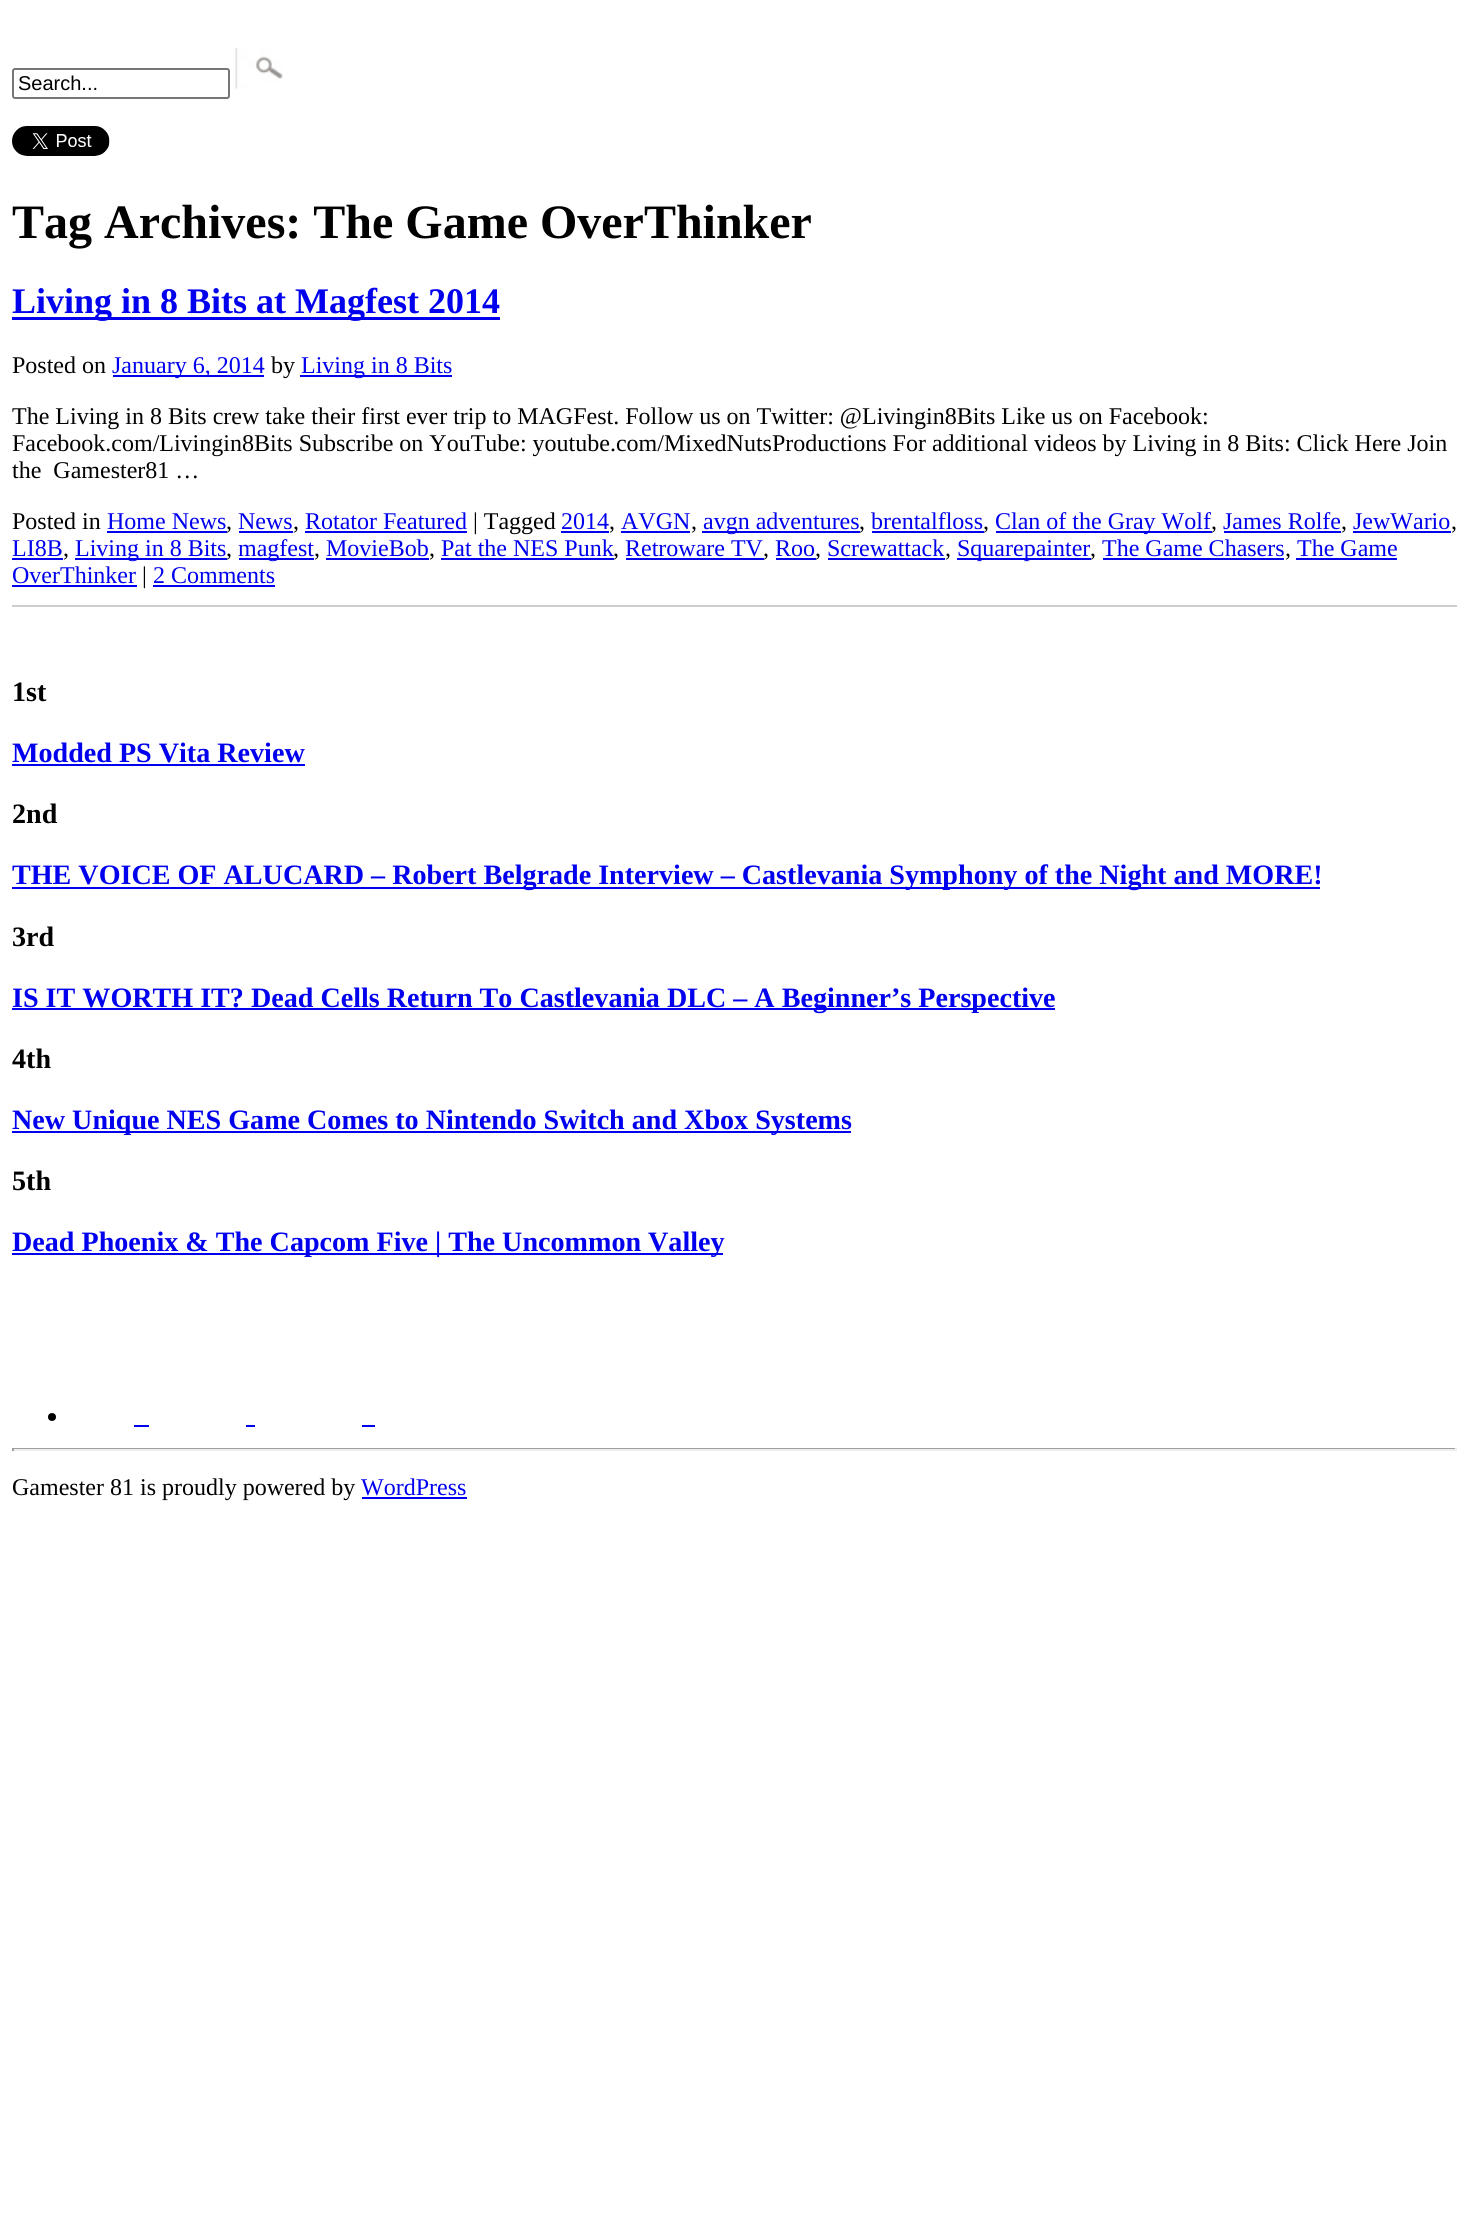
#include <cairo.h>
#include <math.h>
#include <stddef.h>

typedef struct { double x, y; const char *s; } line_t;
typedef struct { double x, y, w, h; unsigned color; } box_t;

static void ink(cairo_t *ctx, unsigned color) {
    cairo_set_source_rgb(ctx, (color >> 16) / 255.0, (color >> 8 & 255) / 255.0, (color & 255) / 255.0);
}

static void round_path(cairo_t *ctx, double x, double y, double w, double h, double r) {
    cairo_new_sub_path(ctx);
    cairo_arc(ctx, x + w - r, y + h - r, r, 0, M_PI / 2);
    cairo_arc(ctx, x + r, y + h - r, r, M_PI / 2, M_PI);
    cairo_arc(ctx, x + r, y + r, r, M_PI, 1.5 * M_PI);
    cairo_arc(ctx, x + w - r, y + r, r, 1.5 * M_PI, 2 * M_PI);
    cairo_close_path(ctx);
}

static void paste(cairo_t *ctx, const char *path, double x, double y, double w, double h) {
    cairo_surface_t *image = cairo_image_surface_create_from_png(path);
    cairo_save(ctx);
    cairo_set_source_surface(ctx, image, x, y);
    cairo_rectangle(ctx, x, y, w, h);
    cairo_fill(ctx);
    cairo_restore(ctx);
    cairo_surface_destroy(image);
}

int main(void) {
    cairo_surface_t *surface = cairo_image_surface_create(CAIRO_FORMAT_RGB24, 1468, 2229);
    cairo_t *ctx = cairo_create(surface);
    cairo_font_options_t *options = cairo_font_options_create();
    cairo_font_options_set_hint_metrics(options, CAIRO_HINT_METRICS_OFF);
    cairo_font_options_set_hint_style(options, CAIRO_HINT_STYLE_NONE);
    cairo_set_font_options(ctx, options);
    cairo_set_miter_limit(ctx, 4);
    ink(ctx, 0xFFFFFF);
    cairo_paint(ctx);
    round_path(ctx, 13, 69, 216, 29, 2);
    ink(ctx, 0x767676);
    cairo_stroke(ctx);
    cairo_select_font_face(ctx, "Liberation Sans", CAIRO_FONT_SLANT_NORMAL, CAIRO_FONT_WEIGHT_NORMAL);
    cairo_set_font_size(ctx, 20);
    ink(ctx, 0x000000);
    cairo_move_to(ctx, 18, 90);
    cairo_show_text(ctx, "Search...");
    paste(ctx, "media/1.png", 235, 47, 48, 43);
    paste(ctx, "media/2.png", 12, 126, 98, 30);
    cairo_select_font_face(ctx, "Liberation Serif", CAIRO_FONT_SLANT_NORMAL, CAIRO_FONT_WEIGHT_BOLD);
    cairo_set_font_size(ctx, 48);
    cairo_move_to(ctx, 12, 238);
    cairo_show_text(ctx, "Tag Archives: The Game OverThinker");
    ink(ctx, 0x0000EE);
    cairo_rectangle(ctx, 12, 317, 488, 3);
    cairo_fill(ctx);
    cairo_set_font_size(ctx, 36);
    cairo_move_to(ctx, 12, 313);
    cairo_show_text(ctx, "Living in 8 Bits at Magfest 2014");
    cairo_select_font_face(ctx, "Liberation Serif", CAIRO_FONT_SLANT_NORMAL, CAIRO_FONT_WEIGHT_NORMAL);
    cairo_set_font_size(ctx, 24);
    ink(ctx, 0x000000);
    cairo_move_to(ctx, 12, 373);
    cairo_show_text(ctx, "Posted on");
    ink(ctx, 0x0000EE);
    cairo_rectangle(ctx, 113, 375, 151, 2);
    cairo_fill(ctx);
    cairo_move_to(ctx, 112, 373);
    cairo_show_text(ctx, "January 6, 2014");
    ink(ctx, 0x000000);
    cairo_move_to(ctx, 271, 373);
    cairo_show_text(ctx, "by");
    ink(ctx, 0x0000EE);
    cairo_rectangle(ctx, 300, 375, 152, 2);
    cairo_fill(ctx);
    cairo_move_to(ctx, 301, 373);
    cairo_show_text(ctx, "Living in 8 Bits");
    ink(ctx, 0x000000);
    {
        static const line_t items[] = {
            {12, 424, "The Living in 8 Bits crew take their first ever trip to MAGFest. Follow us on Twitter: @Livingin8Bits Like us on Facebook:"},
            {12, 451, "Facebook.com/Livingin8Bits Subscribe on YouTube: youtube.com/MixedNutsProductions For additional videos by Living in 8 Bits: Click Here Join"},
            {12, 478, "the  Gamester81 …"},
            {12, 529, "Posted in"},
        };
        for (size_t i = 0; i < sizeof items / sizeof *items; i++) {
            cairo_move_to(ctx, items[i].x, items[i].y);
            cairo_show_text(ctx, items[i].s);
        }
    }
    ink(ctx, 0x0000EE);
    cairo_move_to(ctx, 107, 529);
    cairo_show_text(ctx, "Home News");
    cairo_rectangle(ctx, 107, 531, 120, 2);
    cairo_fill(ctx);
    ink(ctx, 0x000000);
    cairo_move_to(ctx, 226, 529);
    cairo_show_text(ctx, ",");
    ink(ctx, 0x0000EE);
    cairo_move_to(ctx, 238, 529);
    cairo_show_text(ctx, "News");
    ink(ctx, 0x000000);
    cairo_move_to(ctx, 293, 529);
    cairo_show_text(ctx, ",");
    ink(ctx, 0x0000EE);
    cairo_rectangle(ctx, 239, 531, 54, 2);
    cairo_fill(ctx);
    cairo_rectangle(ctx, 305, 531, 162, 2);
    cairo_fill(ctx);
    cairo_move_to(ctx, 305, 529);
    cairo_show_text(ctx, "Rotator Featured");
    ink(ctx, 0x000000);
    cairo_move_to(ctx, 473, 529);
    cairo_show_text(ctx, "| Tagged");
    ink(ctx, 0x0000EE);
    cairo_move_to(ctx, 561, 529);
    cairo_show_text(ctx, "2014");
    ink(ctx, 0x000000);
    cairo_move_to(ctx, 609, 529);
    cairo_show_text(ctx, ",");
    ink(ctx, 0x0000EE);
    cairo_rectangle(ctx, 561, 531, 48, 2);
    cairo_fill(ctx);
    cairo_move_to(ctx, 621, 529);
    cairo_show_text(ctx, "AVGN");
    ink(ctx, 0x000000);
    cairo_move_to(ctx, 691, 529);
    cairo_show_text(ctx, ",");
    ink(ctx, 0x0000EE);
    cairo_rectangle(ctx, 621, 531, 69, 2);
    cairo_fill(ctx);
    cairo_rectangle(ctx, 702, 531, 158, 2);
    cairo_fill(ctx);
    cairo_move_to(ctx, 703, 529);
    cairo_show_text(ctx, "avgn adventures");
    ink(ctx, 0x000000);
    cairo_move_to(ctx, 859, 529);
    cairo_show_text(ctx, ",");
    ink(ctx, 0x0000EE);
    cairo_move_to(ctx, 871, 529);
    cairo_show_text(ctx, "brentalfloss");
    ink(ctx, 0x000000);
    cairo_move_to(ctx, 983, 529);
    cairo_show_text(ctx, ",");
    ink(ctx, 0x0000EE);
    cairo_rectangle(ctx, 872, 531, 112, 2);
    cairo_fill(ctx);
    cairo_rectangle(ctx, 996, 531, 216, 2);
    cairo_fill(ctx);
    cairo_move_to(ctx, 995, 529);
    cairo_show_text(ctx, "Clan of the Gray Wolf");
    ink(ctx, 0x000000);
    cairo_move_to(ctx, 1211, 529);
    cairo_show_text(ctx, ",");
    ink(ctx, 0x0000EE);
    cairo_move_to(ctx, 1223, 529);
    cairo_show_text(ctx, "James Rolfe");
    ink(ctx, 0x000000);
    cairo_move_to(ctx, 1341, 529);
    cairo_show_text(ctx, ",");
    ink(ctx, 0x0000EE);
    cairo_rectangle(ctx, 1224, 531, 117, 2);
    cairo_fill(ctx);
    cairo_move_to(ctx, 1353, 529);
    cairo_show_text(ctx, "JewWario");
    ink(ctx, 0x000000);
    cairo_move_to(ctx, 1451, 529);
    cairo_show_text(ctx, ",");
    ink(ctx, 0x0000EE);
    cairo_rectangle(ctx, 1353, 531, 98, 2);
    cairo_fill(ctx);
    cairo_move_to(ctx, 12, 556);
    cairo_show_text(ctx, "LI8B");
    ink(ctx, 0x000000);
    cairo_move_to(ctx, 63, 556);
    cairo_show_text(ctx, ",");
    ink(ctx, 0x0000EE);
    cairo_rectangle(ctx, 12, 558, 51, 2);
    cairo_fill(ctx);
    cairo_rectangle(ctx, 75, 558, 152, 2);
    cairo_fill(ctx);
    cairo_move_to(ctx, 75, 556);
    cairo_show_text(ctx, "Living in 8 Bits");
    ink(ctx, 0x000000);
    cairo_move_to(ctx, 226, 556);
    cairo_show_text(ctx, ",");
    ink(ctx, 0x0000EE);
    cairo_rectangle(ctx, 239, 558, 75, 2);
    cairo_fill(ctx);
    cairo_move_to(ctx, 238, 556);
    cairo_show_text(ctx, "magfest");
    ink(ctx, 0x000000);
    cairo_move_to(ctx, 314, 556);
    cairo_show_text(ctx, ",");
    ink(ctx, 0x0000EE);
    cairo_move_to(ctx, 326, 556);
    cairo_show_text(ctx, "MovieBob");
    ink(ctx, 0x000000);
    cairo_move_to(ctx, 429, 556);
    cairo_show_text(ctx, ",");
    ink(ctx, 0x0000EE);
    cairo_rectangle(ctx, 326, 558, 103, 2);
    cairo_fill(ctx);
    cairo_move_to(ctx, 441, 556);
    cairo_show_text(ctx, "Pat the NES Punk");
    ink(ctx, 0x000000);
    cairo_move_to(ctx, 613, 556);
    cairo_show_text(ctx, ",");
    ink(ctx, 0x0000EE);
    cairo_rectangle(ctx, 441, 558, 173, 2);
    cairo_fill(ctx);
    cairo_move_to(ctx, 625, 556);
    cairo_show_text(ctx, "Retroware TV");
    ink(ctx, 0x000000);
    cairo_move_to(ctx, 763, 556);
    cairo_show_text(ctx, ",");
    ink(ctx, 0x0000EE);
    cairo_rectangle(ctx, 626, 558, 138, 2);
    cairo_fill(ctx);
    cairo_move_to(ctx, 775, 556);
    cairo_show_text(ctx, "Roo");
    ink(ctx, 0x000000);
    cairo_move_to(ctx, 815, 556);
    cairo_show_text(ctx, ",");
    ink(ctx, 0x0000EE);
    cairo_rectangle(ctx, 776, 558, 40, 2);
    cairo_fill(ctx);
    cairo_move_to(ctx, 827, 556);
    cairo_show_text(ctx, "Screwattack");
    ink(ctx, 0x000000);
    cairo_move_to(ctx, 945, 556);
    cairo_show_text(ctx, ",");
    ink(ctx, 0x0000EE);
    cairo_rectangle(ctx, 828, 558, 117, 2);
    cairo_fill(ctx);
    cairo_rectangle(ctx, 957, 558, 134, 2);
    cairo_fill(ctx);
    cairo_move_to(ctx, 957, 556);
    cairo_show_text(ctx, "Squarepainter");
    ink(ctx, 0x000000);
    cairo_move_to(ctx, 1090, 556);
    cairo_show_text(ctx, ",");
    ink(ctx, 0x0000EE);
    cairo_move_to(ctx, 1102, 556);
    cairo_show_text(ctx, "The Game Chasers");
    ink(ctx, 0x000000);
    cairo_move_to(ctx, 1285, 556);
    cairo_show_text(ctx, ",");
    ink(ctx, 0x0000EE);
    cairo_rectangle(ctx, 1103, 558, 181, 2);
    cairo_fill(ctx);
    cairo_rectangle(ctx, 1296, 558, 101, 2);
    cairo_fill(ctx);
    cairo_move_to(ctx, 1297, 556);
    cairo_show_text(ctx, "The Game");
    cairo_move_to(ctx, 12, 583);
    cairo_show_text(ctx, "OverThinker");
    cairo_rectangle(ctx, 12, 585, 125, 2);
    cairo_fill(ctx);
    ink(ctx, 0x000000);
    cairo_move_to(ctx, 142, 583);
    cairo_show_text(ctx, "|");
    ink(ctx, 0x0000EE);
    cairo_move_to(ctx, 153, 583);
    cairo_show_text(ctx, "2 Comments");
    cairo_rectangle(ctx, 153, 585, 122, 2);
    cairo_fill(ctx);
    ink(ctx, 0xCDCDCD);
    cairo_rectangle(ctx, 12, 605, 1445, 2);
    cairo_fill(ctx);
    cairo_select_font_face(ctx, "Liberation Serif", CAIRO_FONT_SLANT_NORMAL, CAIRO_FONT_WEIGHT_BOLD);
    cairo_set_font_size(ctx, 28.1);
    ink(ctx, 0x000000);
    cairo_move_to(ctx, 12, 701);
    cairo_show_text(ctx, "1st");
    ink(ctx, 0x0000EE);
    cairo_move_to(ctx, 12, 762);
    cairo_show_text(ctx, "Modded PS Vita Review");
    cairo_rectangle(ctx, 12, 764, 293, 2);
    cairo_fill(ctx);
    ink(ctx, 0x000000);
    cairo_move_to(ctx, 12, 823);
    cairo_show_text(ctx, "2nd");
    ink(ctx, 0x0000EE);
    cairo_rectangle(ctx, 12, 887, 1308, 2);
    cairo_fill(ctx);
    cairo_move_to(ctx, 12, 884);
    cairo_show_text(ctx, "THE VOICE OF ALUCARD – Robert Belgrade Interview – Castlevania Symphony of the Night and MORE!");
    ink(ctx, 0x000000);
    cairo_move_to(ctx, 12, 946);
    cairo_show_text(ctx, "3rd");
    ink(ctx, 0x0000EE);
    cairo_rectangle(ctx, 12, 1008, 1043, 2);
    cairo_fill(ctx);
    cairo_move_to(ctx, 12, 1007);
    cairo_show_text(ctx, "IS IT WORTH IT? Dead Cells Return To Castlevania DLC – A Beginner’s Perspective");
    ink(ctx, 0x000000);
    cairo_move_to(ctx, 12, 1068);
    cairo_show_text(ctx, "4th");
    ink(ctx, 0x0000EE);
    cairo_rectangle(ctx, 12, 1131, 839, 2);
    cairo_fill(ctx);
    cairo_move_to(ctx, 12, 1129);
    cairo_show_text(ctx, "New Unique NES Game Comes to Nintendo Switch and Xbox Systems");
    ink(ctx, 0x000000);
    cairo_move_to(ctx, 12, 1190);
    cairo_show_text(ctx, "5th");
    ink(ctx, 0x0000EE);
    cairo_rectangle(ctx, 12, 1253, 711, 2);
    cairo_fill(ctx);
    cairo_move_to(ctx, 12, 1251);
    cairo_show_text(ctx, "Dead Phoenix & The Capcom Five | The Uncommon Valley");
    ink(ctx, 0x000000);
    cairo_new_path(ctx);
    cairo_arc(ctx, 52, 1417, 4, 0, 2 * M_PI);
    cairo_fill(ctx);
    {
        static const box_t items[] = {
            {134, 1425, 15, 2, 0x0000EE},
            {246, 1425, 9, 2, 0x0000EE},
            {362, 1425, 13, 2, 0x0000EE},
            {12, 1448, 1445, 1, 0x9F9F9F},
            {1455, 1448, 2, 3, 0xEEEEEE},
            {12, 1449, 1445, 2, 0xEEEEEE},
            {12, 1448, 2, 3, 0x9F9F9F},
        };
        for (size_t i = 0; i < sizeof items / sizeof *items; i++) {
            ink(ctx, items[i].color);
            cairo_rectangle(ctx, items[i].x, items[i].y, items[i].w, items[i].h);
            cairo_fill(ctx);
        }
    }
    cairo_select_font_face(ctx, "Liberation Serif", CAIRO_FONT_SLANT_NORMAL, CAIRO_FONT_WEIGHT_NORMAL);
    cairo_set_font_size(ctx, 24);
    ink(ctx, 0x000000);
    cairo_move_to(ctx, 12, 1495);
    cairo_show_text(ctx, "Gamester 81 is proudly powered by");
    ink(ctx, 0x0000EE);
    cairo_move_to(ctx, 361, 1495);
    cairo_show_text(ctx, "WordPress");
    cairo_rectangle(ctx, 362, 1497, 105, 2);
    cairo_fill(ctx);
    cairo_surface_write_to_png(surface, "image.png");
    cairo_font_options_destroy(options);
    cairo_destroy(ctx);
    cairo_surface_destroy(surface);
    return 0;
}
